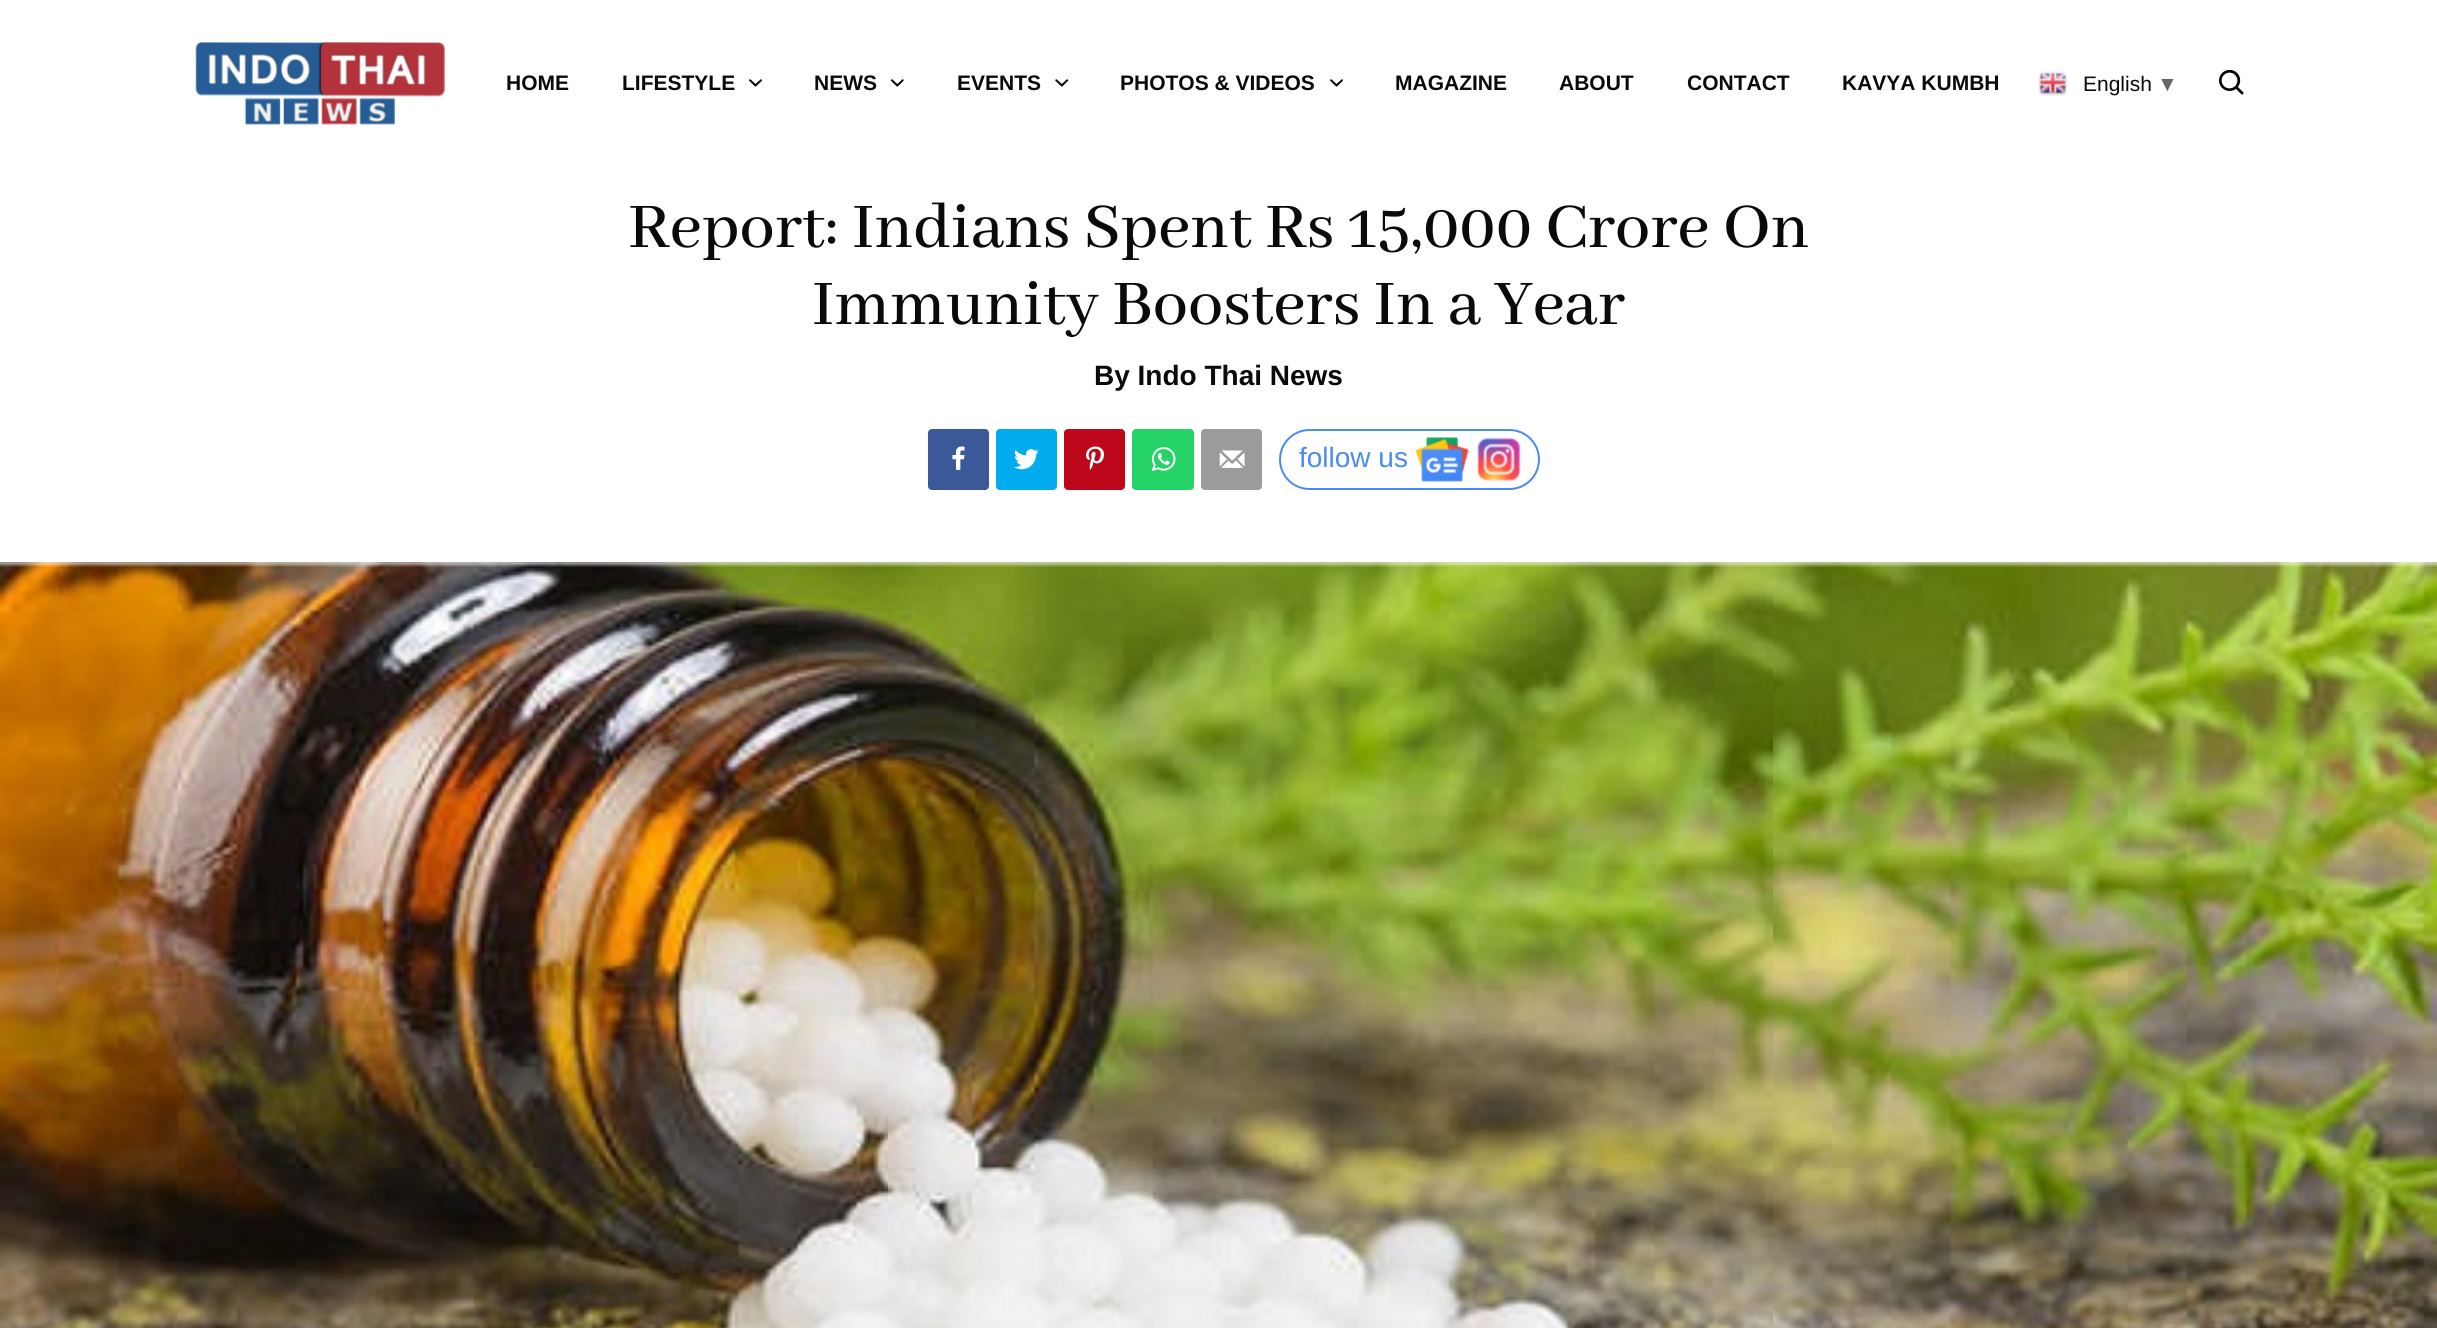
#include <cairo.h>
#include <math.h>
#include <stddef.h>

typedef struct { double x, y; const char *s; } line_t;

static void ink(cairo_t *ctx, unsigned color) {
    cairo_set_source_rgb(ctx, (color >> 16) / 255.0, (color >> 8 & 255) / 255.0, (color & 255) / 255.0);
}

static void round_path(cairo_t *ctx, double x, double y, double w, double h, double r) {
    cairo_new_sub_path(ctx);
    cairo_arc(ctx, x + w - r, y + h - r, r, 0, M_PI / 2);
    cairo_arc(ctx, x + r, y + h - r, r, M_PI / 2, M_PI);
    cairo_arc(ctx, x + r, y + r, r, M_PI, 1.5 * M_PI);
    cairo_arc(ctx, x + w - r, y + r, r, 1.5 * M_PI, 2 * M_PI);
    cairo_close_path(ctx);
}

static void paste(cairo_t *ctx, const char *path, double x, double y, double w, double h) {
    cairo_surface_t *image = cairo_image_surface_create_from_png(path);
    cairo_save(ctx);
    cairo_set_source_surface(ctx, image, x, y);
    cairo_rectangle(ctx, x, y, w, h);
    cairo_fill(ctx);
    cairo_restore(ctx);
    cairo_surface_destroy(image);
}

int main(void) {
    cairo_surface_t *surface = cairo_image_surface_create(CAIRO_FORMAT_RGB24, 2437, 1328);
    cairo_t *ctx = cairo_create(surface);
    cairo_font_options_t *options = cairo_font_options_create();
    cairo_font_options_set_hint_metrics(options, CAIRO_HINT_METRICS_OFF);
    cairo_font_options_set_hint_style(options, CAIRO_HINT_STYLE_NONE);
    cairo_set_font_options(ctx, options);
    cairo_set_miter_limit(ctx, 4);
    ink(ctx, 0xFFFFFF);
    cairo_paint(ctx);
    paste(ctx, "media/1.png", 195, 42, 250, 83);
    cairo_select_font_face(ctx, "Liberation Sans", CAIRO_FONT_SLANT_NORMAL, CAIRO_FONT_WEIGHT_BOLD);
    cairo_set_font_size(ctx, 21);
    ink(ctx, 0x0A0A0A);
    cairo_move_to(ctx, 506, 90);
    cairo_show_text(ctx, "HOME");
    cairo_move_to(ctx, 622, 90);
    cairo_show_text(ctx, "LIFESTYLE");
    paste(ctx, "media/2.png", 749, 79, 13, 8);
    cairo_move_to(ctx, 814, 90);
    cairo_show_text(ctx, "NEWS");
    paste(ctx, "media/3.png", 890, 79, 14, 8);
    cairo_move_to(ctx, 957, 90);
    cairo_show_text(ctx, "EVENTS");
    paste(ctx, "media/4.png", 1055, 79, 14, 8);
    cairo_move_to(ctx, 1120, 90);
    cairo_show_text(ctx, "PHOTOS & VIDEOS");
    paste(ctx, "media/2.png", 1330, 79, 13, 8);
    {
        static const line_t items[] = {
            {1395, 90, "MAGAZINE"},
            {1559, 90, "ABOUT"},
            {1687, 90, "CONTACT"},
            {1842, 90, "KAVYA KUMBH"},
        };
        for (size_t i = 0; i < sizeof items / sizeof *items; i++) {
            cairo_move_to(ctx, items[i].x, items[i].y);
            cairo_show_text(ctx, items[i].s);
        }
    }
    paste(ctx, "media/5.png", 2038, 71, 29, 25);
    cairo_select_font_face(ctx, "Liberation Sans", CAIRO_FONT_SLANT_NORMAL, CAIRO_FONT_WEIGHT_NORMAL);
    cairo_move_to(ctx, 2083, 91);
    cairo_show_text(ctx, "English");
    cairo_select_font_face(ctx, "Liberation Sans", CAIRO_FONT_SLANT_NORMAL, CAIRO_FONT_WEIGHT_BOLD);
    ink(ctx, 0x666666);
    cairo_move_to(ctx, 2157, 91);
    cairo_show_text(ctx, "▼");
    paste(ctx, "media/6.png", 2219, 70, 25, 25);
    cairo_select_font_face(ctx, "Abhaya Libre Medium Medium", CAIRO_FONT_SLANT_NORMAL, CAIRO_FONT_WEIGHT_NORMAL);
    cairo_set_font_size(ctx, 70);
    ink(ctx, 0x0A0A0A);
    cairo_move_to(ctx, 628, 247);
    cairo_show_text(ctx, "Report: Indians Spent Rs 15,000 Crore On");
    cairo_move_to(ctx, 812, 324);
    cairo_show_text(ctx, "Immunity Boosters In a Year");
    cairo_select_font_face(ctx, "Liberation Sans", CAIRO_FONT_SLANT_NORMAL, CAIRO_FONT_WEIGHT_BOLD);
    cairo_set_font_size(ctx, 28);
    cairo_move_to(ctx, 1094, 385);
    cairo_show_text(ctx, "By Indo Thai News");
    ink(ctx, 0x3B5998);
    round_path(ctx, 928, 429, 61, 61, 4);
    cairo_fill(ctx);
    paste(ctx, "media/7.png", 952, 446, 13, 24);
    ink(ctx, 0x00ACED);
    round_path(ctx, 996, 429, 61, 61, 4);
    cairo_fill(ctx);
    paste(ctx, "media/8.png", 1014, 449, 25, 21);
    ink(ctx, 0xBD081C);
    round_path(ctx, 1064, 429, 61, 61, 4);
    cairo_fill(ctx);
    paste(ctx, "media/9.png", 1086, 446, 18, 24);
    ink(ctx, 0x25D366);
    round_path(ctx, 1132, 429, 62, 61, 4);
    cairo_fill(ctx);
    paste(ctx, "media/10.png", 1151, 447, 25, 25);
    ink(ctx, 0x9B9B9B);
    round_path(ctx, 1201, 429, 61, 61, 4);
    cairo_fill(ctx);
    paste(ctx, "media/11.png", 1219, 450, 26, 18);
    round_path(ctx, 1280, 430, 259, 59, 29.5);
    ink(ctx, 0x4A8AF4);
    cairo_stroke(ctx);
    cairo_select_font_face(ctx, "Liberation Sans", CAIRO_FONT_SLANT_NORMAL, CAIRO_FONT_WEIGHT_NORMAL);
    cairo_move_to(ctx, 1299, 467);
    cairo_show_text(ctx, "follow us");
    paste(ctx, "media/12.png", 1415, 437, 54, 45);
    paste(ctx, "media/13.png", 1476, 437, 45, 45);
    paste(ctx, "media/14.png", 0, 562, 2437, 766);
    cairo_surface_write_to_png(surface, "image.png");
    cairo_font_options_destroy(options);
    cairo_destroy(ctx);
    cairo_surface_destroy(surface);
    return 0;
}
